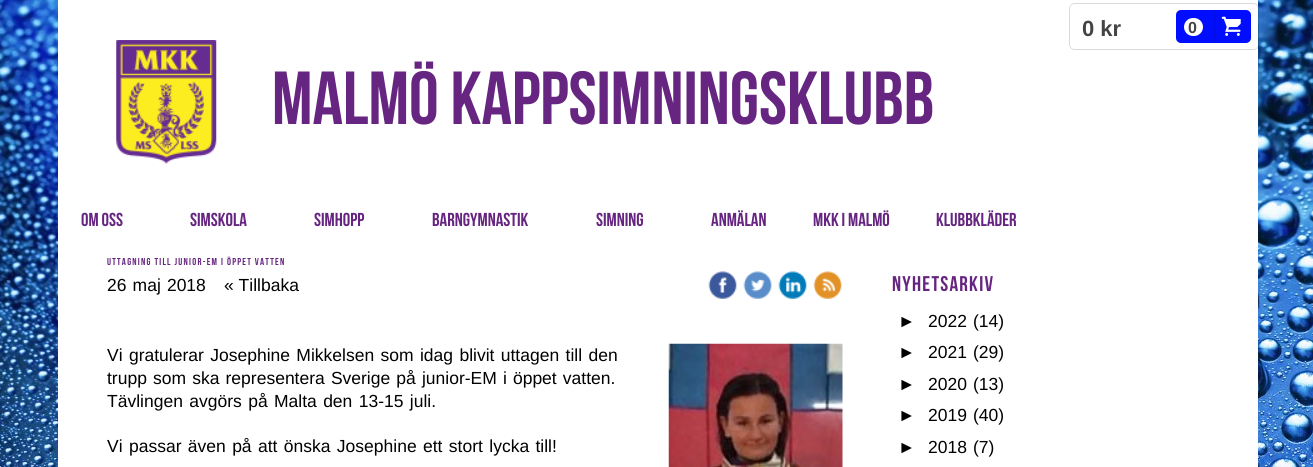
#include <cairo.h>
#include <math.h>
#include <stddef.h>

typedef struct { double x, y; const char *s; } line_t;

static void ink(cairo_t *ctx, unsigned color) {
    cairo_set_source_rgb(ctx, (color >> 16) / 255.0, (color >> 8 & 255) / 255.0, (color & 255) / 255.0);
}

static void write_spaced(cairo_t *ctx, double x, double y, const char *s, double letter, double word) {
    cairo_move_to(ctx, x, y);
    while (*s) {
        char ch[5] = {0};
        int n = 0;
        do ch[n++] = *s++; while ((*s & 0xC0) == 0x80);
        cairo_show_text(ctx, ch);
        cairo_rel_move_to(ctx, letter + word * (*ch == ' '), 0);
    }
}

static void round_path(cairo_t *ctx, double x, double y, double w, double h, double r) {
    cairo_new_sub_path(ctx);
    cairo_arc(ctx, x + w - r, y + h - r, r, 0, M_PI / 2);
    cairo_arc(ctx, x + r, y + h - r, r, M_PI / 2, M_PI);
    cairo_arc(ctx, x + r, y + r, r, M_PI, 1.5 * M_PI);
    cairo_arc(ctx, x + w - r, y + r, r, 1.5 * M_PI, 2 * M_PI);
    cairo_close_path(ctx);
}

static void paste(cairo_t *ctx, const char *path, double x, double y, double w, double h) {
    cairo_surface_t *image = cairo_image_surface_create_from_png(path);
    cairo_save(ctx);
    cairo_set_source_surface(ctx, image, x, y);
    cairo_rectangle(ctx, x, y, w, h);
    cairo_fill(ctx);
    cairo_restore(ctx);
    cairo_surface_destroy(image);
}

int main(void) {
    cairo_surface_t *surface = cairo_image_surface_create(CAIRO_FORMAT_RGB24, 1313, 467);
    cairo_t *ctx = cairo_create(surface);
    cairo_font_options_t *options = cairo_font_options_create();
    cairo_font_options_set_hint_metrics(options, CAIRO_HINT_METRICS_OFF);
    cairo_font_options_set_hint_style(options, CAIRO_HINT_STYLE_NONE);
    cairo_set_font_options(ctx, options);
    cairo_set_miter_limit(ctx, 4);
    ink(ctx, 0xFFFFFF);
    cairo_paint(ctx);
    paste(ctx, "media/1.png", 0, 0, 1313, 467);
    ink(ctx, 0xFFFFFF);
    cairo_rectangle(ctx, 58, 0, 1200, 467);
    cairo_fill(ctx);
    round_path(ctx, 1069.5, 3.5, 189, 46, 5.5);
    cairo_set_source_rgba(ctx, 0, 0, 0, 0.15);
    cairo_set_line_width(ctx, 1);
    cairo_stroke(ctx);
    ink(ctx, 0xFFFFFF);
    round_path(ctx, 1070, 4, 188, 45, 5);
    cairo_fill(ctx);
    cairo_select_font_face(ctx, "Liberation Sans", CAIRO_FONT_SLANT_NORMAL, CAIRO_FONT_WEIGHT_BOLD);
    cairo_set_font_size(ctx, 22);
    ink(ctx, 0x444444);
    cairo_move_to(ctx, 1082, 36);
    cairo_show_text(ctx, "0 kr");
    ink(ctx, 0x000DFF);
    round_path(ctx, 1176, 10, 75, 33, 5);
    cairo_fill(ctx);
    ink(ctx, 0x000CE6);
    cairo_rectangle(ctx, 1214, 10, 1, 33);
    cairo_fill(ctx);
    ink(ctx, 0xFFFFFF);
    round_path(ctx, 1184, 18, 19, 18, 9);
    cairo_fill(ctx);
    cairo_set_font_size(ctx, 16);
    ink(ctx, 0x444444);
    cairo_move_to(ctx, 1188, 33);
    cairo_show_text(ctx, "0");
    paste(ctx, "media/2.png", 1221, 16, 20, 20);
    paste(ctx, "media/3.png", 116, 40, 101, 124);
    cairo_select_font_face(ctx, "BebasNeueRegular", CAIRO_FONT_SLANT_NORMAL, CAIRO_FONT_WEIGHT_NORMAL);
    cairo_set_font_size(ctx, 75);
    ink(ctx, 0x662580);
    cairo_move_to(ctx, 272, 124);
    cairo_show_text(ctx, "MALMÖ KAPPSIMNINGSKLUBB");
    cairo_set_font_size(ctx, 18.75);
    {
        static const line_t items[] = {
            {81, 226, "OM OSS"},
            {190, 226, "SIMSKOLA"},
            {314, 226, "SIMHOPP"},
            {432, 226, "BARNGYMNASTIK"},
            {596, 226, "SIMNING"},
            {711, 226, "ANMÄLAN"},
            {813, 226, "MKK I MALMÖ"},
            {936, 226, "KLUBBKLÄDER"},
        };
        for (size_t i = 0; i < sizeof items / sizeof *items; i++) {
            cairo_move_to(ctx, items[i].x, items[i].y);
            cairo_show_text(ctx, items[i].s);
        }
    }
    cairo_set_font_size(ctx, 10);
    write_spaced(ctx, 107, 265, "UTTAGNING TILL JUNIOR-EM I ÖPPET VATTEN", 1.25, 0);
    cairo_select_font_face(ctx, "Liberation Sans", CAIRO_FONT_SLANT_NORMAL, CAIRO_FONT_WEIGHT_NORMAL);
    cairo_set_font_size(ctx, 17.5);
    ink(ctx, 0x000000);
    write_spaced(ctx, 107, 291, "26 maj 2018", 0, 1.25);
    cairo_move_to(ctx, 224, 291);
    cairo_show_text(ctx, "« Tillbaka");
    paste(ctx, "media/4.png", 708, 271, 29, 28);
    paste(ctx, "media/5.png", 743, 271, 29, 28);
    paste(ctx, "media/6.png", 778, 271, 29, 28);
    paste(ctx, "media/7.png", 813, 271, 29, 28);
    write_spaced(ctx, 107, 361, "Vi gratulerar Josephine Mikkelsen som idag blivit uttagen till den", 0, 1.5);
    write_spaced(ctx, 107, 384, "trupp som ska representera Sverige på junior-EM i öppet vatten.", 0, 1.25);
    write_spaced(ctx, 107, 407, "Tävlingen avgörs på Malta den 13-15 juli.", 0, 1.5);
    write_spaced(ctx, 107, 452, "Vi passar även på att önska Josephine ett stort lycka till!", 0, 1.5);
    paste(ctx, "media/8.png", 668, 343, 175, 124);
    cairo_select_font_face(ctx, "BebasNeueRegular", CAIRO_FONT_SLANT_NORMAL, CAIRO_FONT_WEIGHT_NORMAL);
    cairo_set_font_size(ctx, 21.25);
    ink(ctx, 0x662580);
    write_spaced(ctx, 892, 291, "NYHETSARKIV", 1.25, 0);
    cairo_select_font_face(ctx, "Liberation Sans", CAIRO_FONT_SLANT_NORMAL, CAIRO_FONT_WEIGHT_NORMAL);
    cairo_set_font_size(ctx, 17.5);
    ink(ctx, 0x000000);
    {
        static const line_t items[] = {
            {898, 327, "►"},
            {928, 327, "2022"},
            {973, 327, "(14)"},
            {898, 358, "►"},
            {928, 358, "2021"},
            {973, 358, "(29)"},
            {898, 390, "►"},
            {928, 390, "2020"},
            {973, 390, "(13)"},
            {898, 421, "►"},
            {928, 421, "2019"},
            {973, 421, "(40)"},
            {898, 453, "►"},
            {928, 453, "2018"},
            {973, 453, "(7)"},
        };
        for (size_t i = 0; i < sizeof items / sizeof *items; i++) {
            cairo_move_to(ctx, items[i].x, items[i].y);
            cairo_show_text(ctx, items[i].s);
        }
    }
    cairo_surface_write_to_png(surface, "image.png");
    cairo_font_options_destroy(options);
    cairo_destroy(ctx);
    cairo_surface_destroy(surface);
    return 0;
}
